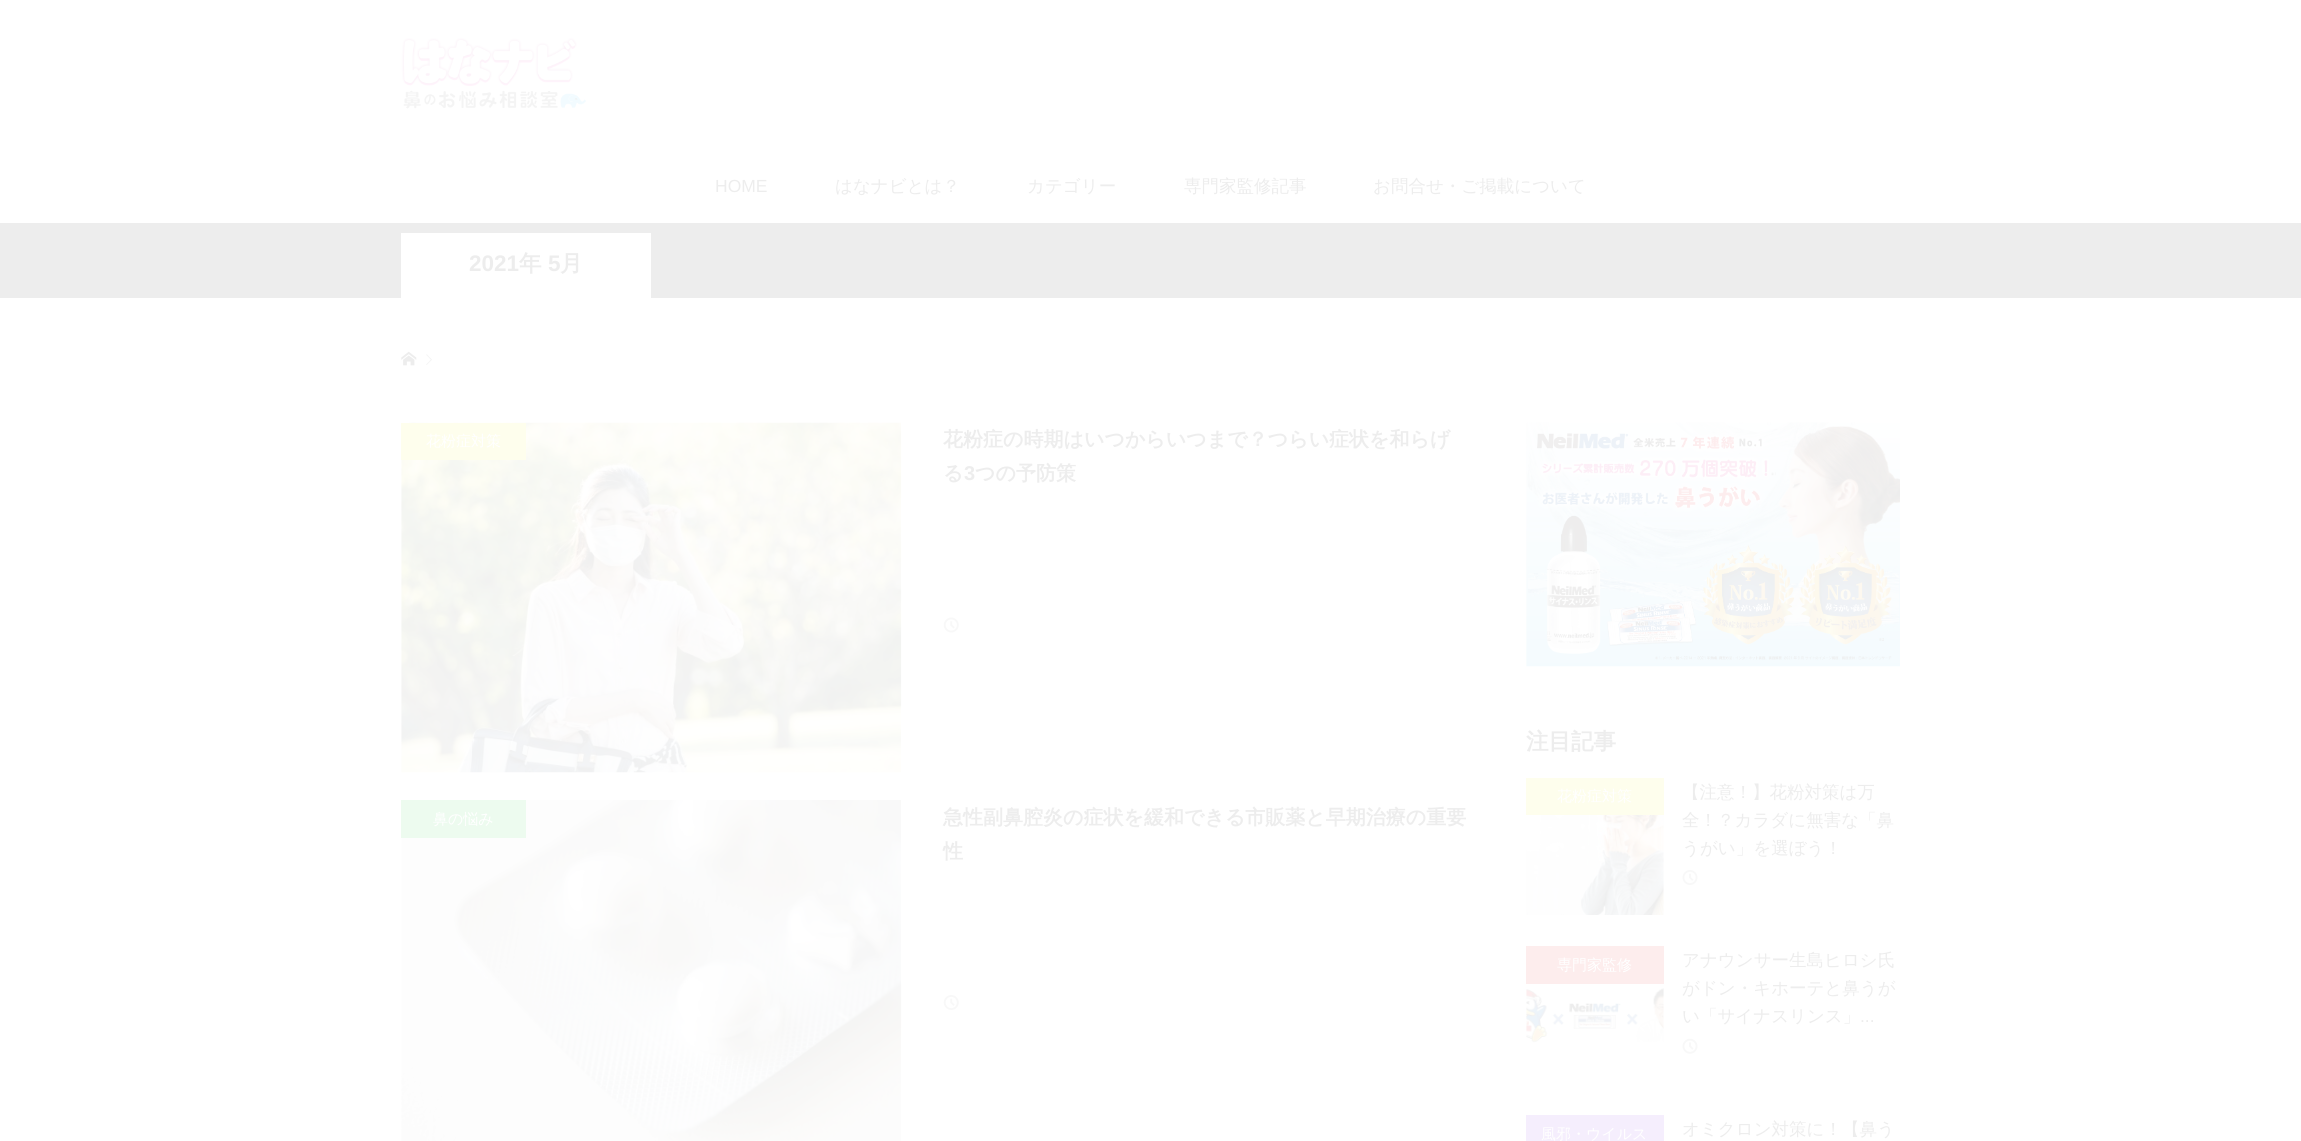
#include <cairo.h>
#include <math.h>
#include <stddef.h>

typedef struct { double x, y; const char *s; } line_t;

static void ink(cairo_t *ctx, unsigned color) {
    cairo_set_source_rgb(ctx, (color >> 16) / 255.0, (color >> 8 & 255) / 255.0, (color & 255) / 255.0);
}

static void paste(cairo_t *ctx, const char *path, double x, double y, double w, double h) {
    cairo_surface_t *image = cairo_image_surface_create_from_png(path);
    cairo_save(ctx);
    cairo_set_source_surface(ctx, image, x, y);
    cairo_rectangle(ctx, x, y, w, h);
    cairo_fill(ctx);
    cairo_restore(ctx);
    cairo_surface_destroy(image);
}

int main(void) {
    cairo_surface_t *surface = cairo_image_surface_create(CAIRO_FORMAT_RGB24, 2301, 1141);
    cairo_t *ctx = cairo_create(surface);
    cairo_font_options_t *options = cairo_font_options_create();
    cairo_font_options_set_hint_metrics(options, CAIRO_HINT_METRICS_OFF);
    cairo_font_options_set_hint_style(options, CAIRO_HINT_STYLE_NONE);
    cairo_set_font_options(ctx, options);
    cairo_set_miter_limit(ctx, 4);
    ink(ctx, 0xFFFFFF);
    cairo_paint(ctx);
    paste(ctx, "media/1.png", 401, 37, 185, 72);
    cairo_select_font_face(ctx, "Liberation Sans", CAIRO_FONT_SLANT_NORMAL, CAIRO_FONT_WEIGHT_NORMAL);
    cairo_set_font_size(ctx, 17.5);
    ink(ctx, 0xEDEDED);
    cairo_move_to(ctx, 715, 192);
    cairo_show_text(ctx, "HOME");
    cairo_select_font_face(ctx, "WenQuanYi Zen Hei Medium", CAIRO_FONT_SLANT_NORMAL, CAIRO_FONT_WEIGHT_NORMAL);
    {
        static const line_t items[] = {
            {835, 192, "はなナビとは？"},
            {1027, 192, "カテゴリー"},
            {1184, 192, "専門家監修記事"},
            {1373, 192, "お問合せ・ご掲載について"},
        };
        for (size_t i = 0; i < sizeof items / sizeof *items; i++) {
            cairo_move_to(ctx, items[i].x, items[i].y);
            cairo_show_text(ctx, items[i].s);
        }
    }
    cairo_rectangle(ctx, 0, 223, 2301, 75);
    cairo_fill(ctx);
    ink(ctx, 0xFFFFFF);
    cairo_rectangle(ctx, 401, 233, 250, 65);
    cairo_fill(ctx);
    cairo_select_font_face(ctx, "Liberation Sans", CAIRO_FONT_SLANT_NORMAL, CAIRO_FONT_WEIGHT_BOLD);
    cairo_set_font_size(ctx, 22.5);
    ink(ctx, 0xEDEDED);
    cairo_move_to(ctx, 469, 271);
    cairo_show_text(ctx, "2021");
    cairo_select_font_face(ctx, "WenQuanYi Zen Hei", CAIRO_FONT_SLANT_NORMAL, CAIRO_FONT_WEIGHT_BOLD);
    cairo_move_to(ctx, 519, 271);
    cairo_show_text(ctx, "年");
    cairo_select_font_face(ctx, "Liberation Sans", CAIRO_FONT_SLANT_NORMAL, CAIRO_FONT_WEIGHT_BOLD);
    cairo_move_to(ctx, 548, 271);
    cairo_show_text(ctx, "5");
    cairo_select_font_face(ctx, "WenQuanYi Zen Hei", CAIRO_FONT_SLANT_NORMAL, CAIRO_FONT_WEIGHT_BOLD);
    cairo_move_to(ctx, 560, 271);
    cairo_show_text(ctx, "月");
    paste(ctx, "media/2.png", 401, 351, 16, 15);
    paste(ctx, "media/3.png", 426, 354, 6, 11);
    paste(ctx, "media/4.png", 401, 422, 501, 351);
    ink(ctx, 0xFEFEED);
    cairo_rectangle(ctx, 401, 423, 125, 37);
    cairo_fill(ctx);
    cairo_select_font_face(ctx, "WenQuanYi Zen Hei Medium", CAIRO_FONT_SLANT_NORMAL, CAIRO_FONT_WEIGHT_NORMAL);
    cairo_set_font_size(ctx, 15);
    ink(ctx, 0xFFFFFF);
    cairo_move_to(ctx, 426, 446);
    cairo_show_text(ctx, "花粉症対策");
    cairo_select_font_face(ctx, "WenQuanYi Zen Hei", CAIRO_FONT_SLANT_NORMAL, CAIRO_FONT_WEIGHT_BOLD);
    cairo_set_font_size(ctx, 20);
    ink(ctx, 0xEDEDED);
    cairo_move_to(ctx, 943, 446);
    cairo_show_text(ctx, "花粉症の時期はいつからいつまで？つらい症状を和らげ");
    cairo_move_to(ctx, 943, 480);
    cairo_show_text(ctx, "る");
    cairo_select_font_face(ctx, "Liberation Sans", CAIRO_FONT_SLANT_NORMAL, CAIRO_FONT_WEIGHT_BOLD);
    cairo_move_to(ctx, 964, 480);
    cairo_show_text(ctx, "3");
    cairo_select_font_face(ctx, "WenQuanYi Zen Hei", CAIRO_FONT_SLANT_NORMAL, CAIRO_FONT_WEIGHT_BOLD);
    cairo_move_to(ctx, 975, 480);
    cairo_show_text(ctx, "つの予防策");
    paste(ctx, "media/5.png", 943, 617, 16, 16);
    paste(ctx, "media/6.png", 401, 800, 501, 341);
    ink(ctx, 0xEDFBEF);
    cairo_rectangle(ctx, 401, 800, 125, 38);
    cairo_fill(ctx);
    cairo_select_font_face(ctx, "WenQuanYi Zen Hei Medium", CAIRO_FONT_SLANT_NORMAL, CAIRO_FONT_WEIGHT_NORMAL);
    cairo_set_font_size(ctx, 15);
    ink(ctx, 0xFFFFFF);
    cairo_move_to(ctx, 433, 824);
    cairo_show_text(ctx, "鼻の悩み");
    cairo_select_font_face(ctx, "WenQuanYi Zen Hei", CAIRO_FONT_SLANT_NORMAL, CAIRO_FONT_WEIGHT_BOLD);
    cairo_set_font_size(ctx, 20);
    ink(ctx, 0xEDEDED);
    cairo_move_to(ctx, 943, 824);
    cairo_show_text(ctx, "急性副鼻腔炎の症状を緩和できる市販薬と早期治療の重要");
    cairo_move_to(ctx, 943, 858);
    cairo_show_text(ctx, "性");
    paste(ctx, "media/7.png", 943, 995, 16, 15);
    paste(ctx, "media/8.png", 1526, 422, 374, 245);
    cairo_set_font_size(ctx, 22.5);
    cairo_move_to(ctx, 1526, 749);
    cairo_show_text(ctx, "注目記事");
    paste(ctx, "media/9.png", 1526, 777, 138, 138);
    ink(ctx, 0xFEFEED);
    cairo_rectangle(ctx, 1526, 778, 138, 37);
    cairo_fill(ctx);
    cairo_select_font_face(ctx, "WenQuanYi Zen Hei Medium", CAIRO_FONT_SLANT_NORMAL, CAIRO_FONT_WEIGHT_NORMAL);
    cairo_set_font_size(ctx, 15);
    ink(ctx, 0xFFFFFF);
    cairo_move_to(ctx, 1557, 801);
    cairo_show_text(ctx, "花粉症対策");
    cairo_set_font_size(ctx, 17.5);
    ink(ctx, 0xEDEDED);
    {
        static const line_t items[] = {
            {1682, 798, "【注意！】花粉対策は万"},
            {1682, 826, "全！？カラダに無害な「鼻"},
            {1682, 854, "うがい」を選ぼう！"},
        };
        for (size_t i = 0; i < sizeof items / sizeof *items; i++) {
            cairo_move_to(ctx, items[i].x, items[i].y);
            cairo_show_text(ctx, items[i].s);
        }
    }
    paste(ctx, "media/10.png", 1682, 870, 16, 15);
    ink(ctx, 0xFDEDED);
    cairo_rectangle(ctx, 1526, 946, 138, 38);
    cairo_fill(ctx);
    cairo_set_font_size(ctx, 15);
    ink(ctx, 0xFFFFFF);
    cairo_move_to(ctx, 1557, 970);
    cairo_show_text(ctx, "専門家監修");
    paste(ctx, "media/11.png", 1526, 987, 138, 56);
    cairo_set_font_size(ctx, 17.5);
    ink(ctx, 0xEDEDED);
    {
        static const line_t items[] = {
            {1682, 966, "アナウンサー生島ヒロシ氏"},
            {1682, 994, "がドン・キホーテと鼻うが"},
            {1682, 1022, "い「サイナスリンス」"},
        };
        for (size_t i = 0; i < sizeof items / sizeof *items; i++) {
            cairo_move_to(ctx, items[i].x, items[i].y);
            cairo_show_text(ctx, items[i].s);
        }
    }
    cairo_select_font_face(ctx, "Liberation Sans", CAIRO_FONT_SLANT_NORMAL, CAIRO_FONT_WEIGHT_NORMAL);
    cairo_move_to(ctx, 1860, 1022);
    cairo_show_text(ctx, "...");
    paste(ctx, "media/12.png", 1682, 1038, 16, 16);
    ink(ctx, 0xF5EEFD);
    cairo_rectangle(ctx, 1526, 1115, 138, 26);
    cairo_fill(ctx);
    cairo_select_font_face(ctx, "WenQuanYi Zen Hei Medium", CAIRO_FONT_SLANT_NORMAL, CAIRO_FONT_WEIGHT_NORMAL);
    cairo_set_font_size(ctx, 15);
    ink(ctx, 0xFFFFFF);
    cairo_move_to(ctx, 1541, 1139);
    cairo_show_text(ctx, "風邪・ウイルス");
    cairo_set_font_size(ctx, 17.5);
    ink(ctx, 0xEDEDED);
    cairo_move_to(ctx, 1682, 1135);
    cairo_show_text(ctx, "オミクロン対策に！【鼻う");
    cairo_surface_write_to_png(surface, "image.png");
    cairo_font_options_destroy(options);
    cairo_destroy(ctx);
    cairo_surface_destroy(surface);
    return 0;
}
